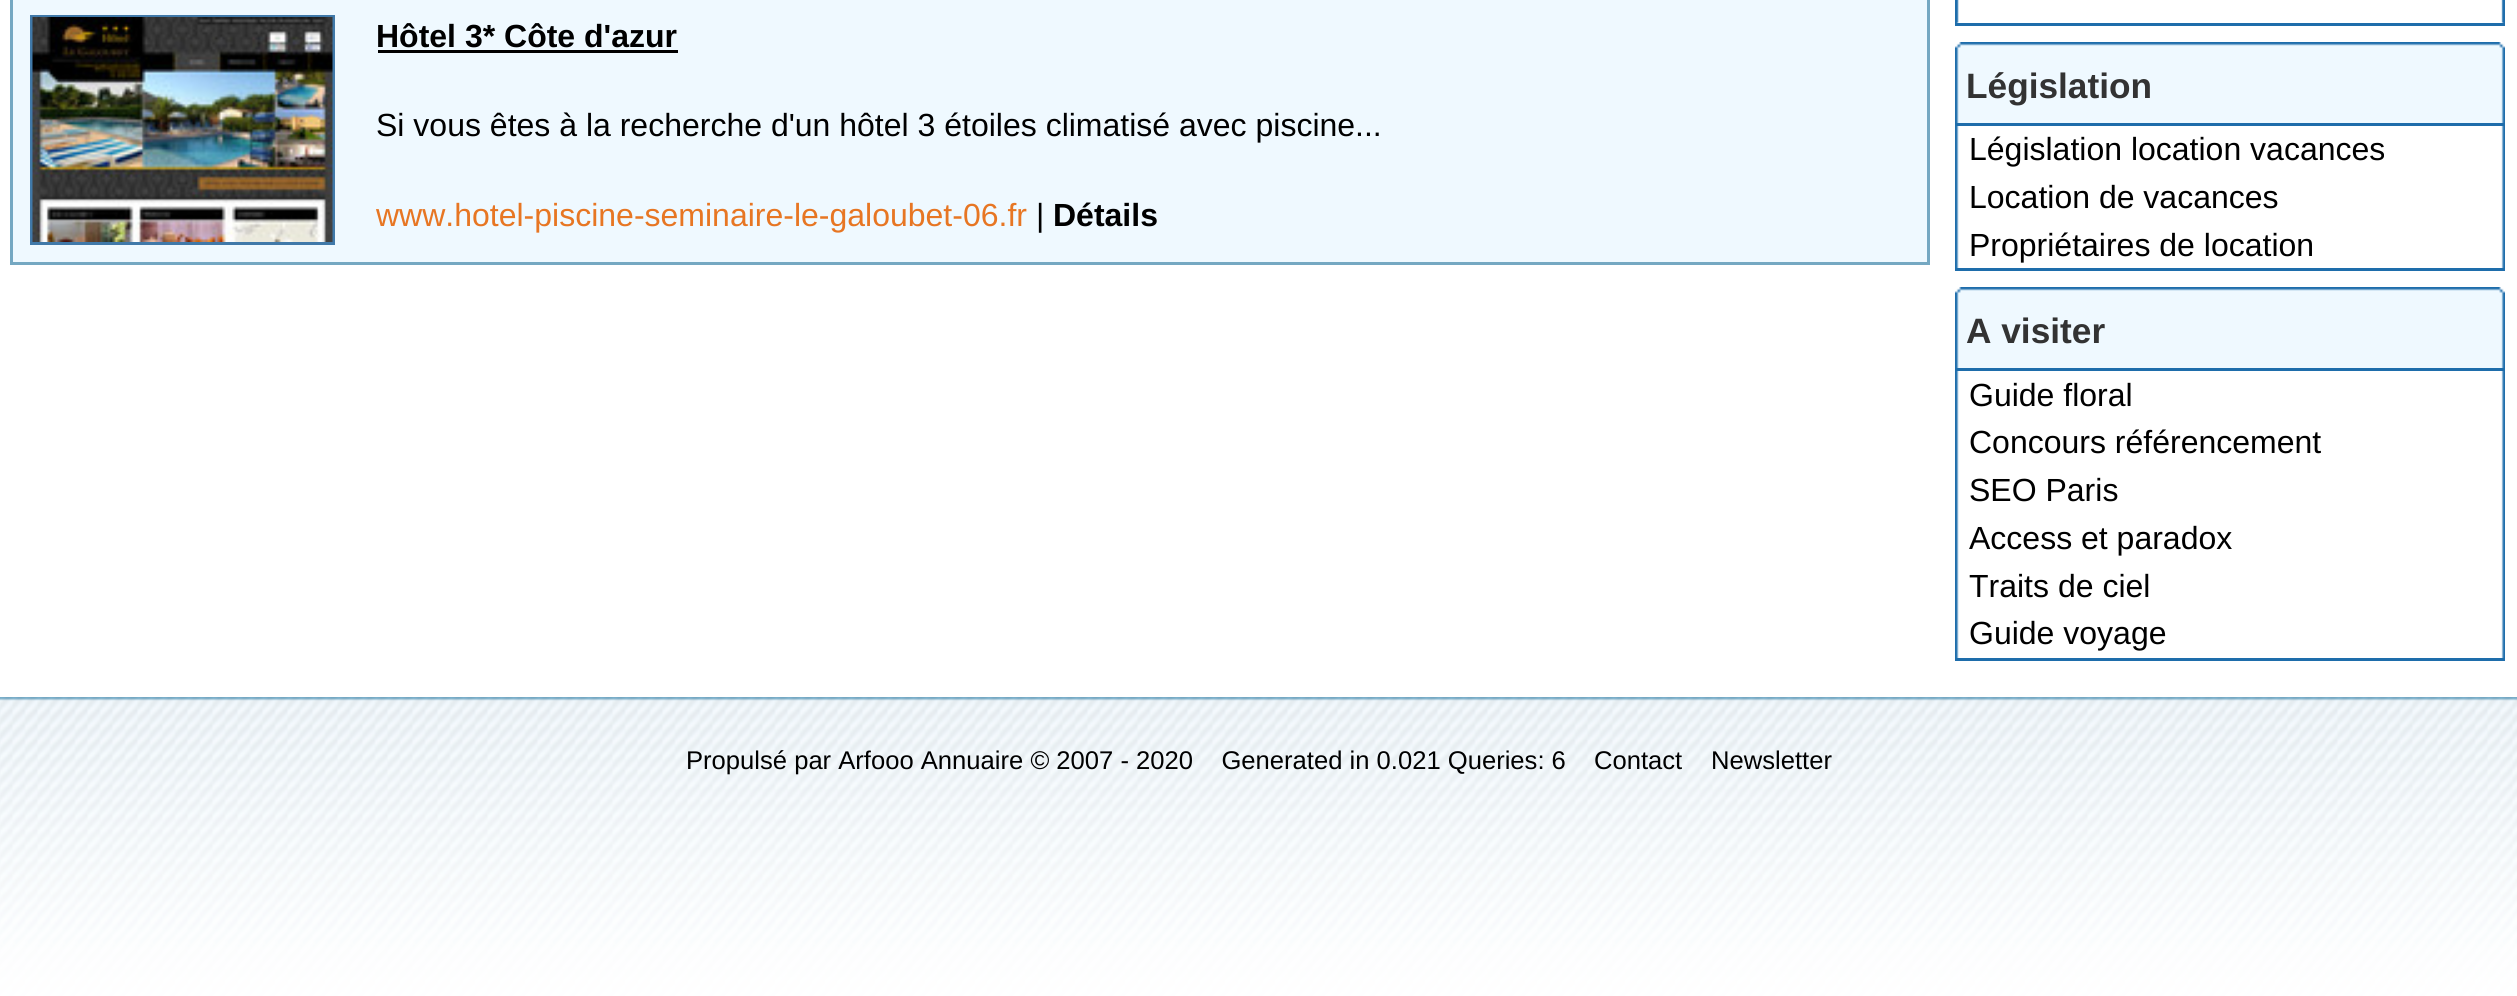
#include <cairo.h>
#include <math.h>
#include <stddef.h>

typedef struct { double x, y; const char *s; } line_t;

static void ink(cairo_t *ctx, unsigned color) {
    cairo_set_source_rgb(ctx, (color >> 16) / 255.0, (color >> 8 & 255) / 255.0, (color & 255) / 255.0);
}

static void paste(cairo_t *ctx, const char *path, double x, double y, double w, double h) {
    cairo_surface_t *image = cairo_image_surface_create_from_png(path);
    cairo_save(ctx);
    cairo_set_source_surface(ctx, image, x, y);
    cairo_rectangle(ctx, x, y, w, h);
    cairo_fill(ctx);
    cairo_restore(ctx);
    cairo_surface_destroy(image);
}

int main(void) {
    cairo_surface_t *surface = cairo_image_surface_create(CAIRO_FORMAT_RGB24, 2517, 996);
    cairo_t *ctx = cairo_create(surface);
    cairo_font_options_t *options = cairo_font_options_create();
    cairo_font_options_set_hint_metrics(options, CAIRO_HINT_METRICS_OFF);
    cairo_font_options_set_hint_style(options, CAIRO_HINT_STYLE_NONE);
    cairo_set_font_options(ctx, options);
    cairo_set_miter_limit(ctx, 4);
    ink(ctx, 0xFFFFFF);
    cairo_paint(ctx);
    ink(ctx, 0xEFF9FF);
    cairo_rectangle(ctx, 11.5, -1.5, 1917, 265);
    cairo_fill_preserve(ctx);
    ink(ctx, 0x75A8C2);
    cairo_set_line_width(ctx, 3);
    cairo_stroke(ctx);
    cairo_rectangle(ctx, 31.5, 16.5, 302, 227);
    ink(ctx, 0x4079A9);
    cairo_stroke(ctx);
    paste(ctx, "media/1.png", 32, 17, 301, 225);
    cairo_select_font_face(ctx, "Liberation Sans", CAIRO_FONT_SLANT_NORMAL, CAIRO_FONT_WEIGHT_BOLD);
    cairo_set_font_size(ctx, 32);
    ink(ctx, 0x000000);
    cairo_move_to(ctx, 376, 47);
    cairo_show_text(ctx, "Hôtel 3* Côte d'azur");
    cairo_rectangle(ctx, 378, 50, 300, 3);
    cairo_fill(ctx);
    cairo_select_font_face(ctx, "Liberation Sans", CAIRO_FONT_SLANT_NORMAL, CAIRO_FONT_WEIGHT_NORMAL);
    cairo_move_to(ctx, 376, 136);
    cairo_show_text(ctx, "Si vous êtes à la recherche d'un hôtel 3 étoiles climatisé avec piscine...");
    ink(ctx, 0xE77623);
    cairo_move_to(ctx, 376, 226);
    cairo_show_text(ctx, "www.hotel-piscine-seminaire-le-galoubet-06.fr");
    ink(ctx, 0x000000);
    cairo_move_to(ctx, 1036, 226);
    cairo_show_text(ctx, "|");
    cairo_select_font_face(ctx, "Liberation Sans", CAIRO_FONT_SLANT_NORMAL, CAIRO_FONT_WEIGHT_BOLD);
    cairo_move_to(ctx, 1053, 226);
    cairo_show_text(ctx, "Détails");
    paste(ctx, "media/2.png", 1955, 0, 550, 23);
    paste(ctx, "media/3.png", 1956, 0, 548, 22);
    ink(ctx, 0x1E6DAB);
    cairo_rectangle(ctx, 1955, 23, 550, 3);
    cairo_fill(ctx);
    paste(ctx, "media/4.png", 1955, 126, 550, 142);
    paste(ctx, "media/5.png", 1955, 42, 550, 81);
    cairo_rectangle(ctx, 1955, 123, 550, 3);
    cairo_fill(ctx);
    cairo_set_font_size(ctx, 35.25);
    ink(ctx, 0x333333);
    cairo_move_to(ctx, 1966, 98);
    cairo_show_text(ctx, "Législation");
    cairo_select_font_face(ctx, "Liberation Sans", CAIRO_FONT_SLANT_NORMAL, CAIRO_FONT_WEIGHT_NORMAL);
    cairo_set_font_size(ctx, 32);
    ink(ctx, 0x000000);
    {
        static const line_t items[] = {
            {1969, 160, "Législation location vacances"},
            {1969, 208, "Location de vacances"},
            {1969, 256, "Propriétaires de location"},
        };
        for (size_t i = 0; i < sizeof items / sizeof *items; i++) {
            cairo_move_to(ctx, items[i].x, items[i].y);
            cairo_show_text(ctx, items[i].s);
        }
    }
    ink(ctx, 0x1E6DAB);
    cairo_rectangle(ctx, 1955, 268, 550, 3);
    cairo_fill(ctx);
    paste(ctx, "media/6.png", 1955, 371, 550, 287);
    paste(ctx, "media/5.png", 1955, 287, 550, 81);
    cairo_rectangle(ctx, 1955, 368, 550, 3);
    cairo_fill(ctx);
    cairo_select_font_face(ctx, "Liberation Sans", CAIRO_FONT_SLANT_NORMAL, CAIRO_FONT_WEIGHT_BOLD);
    cairo_set_font_size(ctx, 35.25);
    ink(ctx, 0x333333);
    cairo_move_to(ctx, 1966, 343);
    cairo_show_text(ctx, "A visiter");
    cairo_select_font_face(ctx, "Liberation Sans", CAIRO_FONT_SLANT_NORMAL, CAIRO_FONT_WEIGHT_NORMAL);
    cairo_set_font_size(ctx, 32);
    ink(ctx, 0x000000);
    {
        static const line_t items[] = {
            {1969, 406, "Guide floral"},
            {1969, 453, "Concours référencement"},
            {1969, 501, "SEO Paris"},
            {1969, 549, "Access et paradox"},
            {1969, 597, "Traits de ciel"},
            {1969, 644, "Guide voyage"},
        };
        for (size_t i = 0; i < sizeof items / sizeof *items; i++) {
            cairo_move_to(ctx, items[i].x, items[i].y);
            cairo_show_text(ctx, items[i].s);
        }
    }
    ink(ctx, 0x1E6DAB);
    cairo_rectangle(ctx, 1955, 658, 550, 3);
    cairo_fill(ctx);
    paste(ctx, "media/7.png", 0, 697, 2517, 299);
    cairo_set_font_size(ctx, 25.6);
    ink(ctx, 0x000000);
    {
        static const line_t items[] = {
            {686, 769, "Propulsé par Arfooo Annuaire © 2007 - 2020    Generated in 0.021 Queries: 6"},
            {1594, 769, "Contact"},
            {1711, 769, "Newsletter"},
        };
        for (size_t i = 0; i < sizeof items / sizeof *items; i++) {
            cairo_move_to(ctx, items[i].x, items[i].y);
            cairo_show_text(ctx, items[i].s);
        }
    }
    cairo_surface_write_to_png(surface, "image.png");
    cairo_font_options_destroy(options);
    cairo_destroy(ctx);
    cairo_surface_destroy(surface);
    return 0;
}
